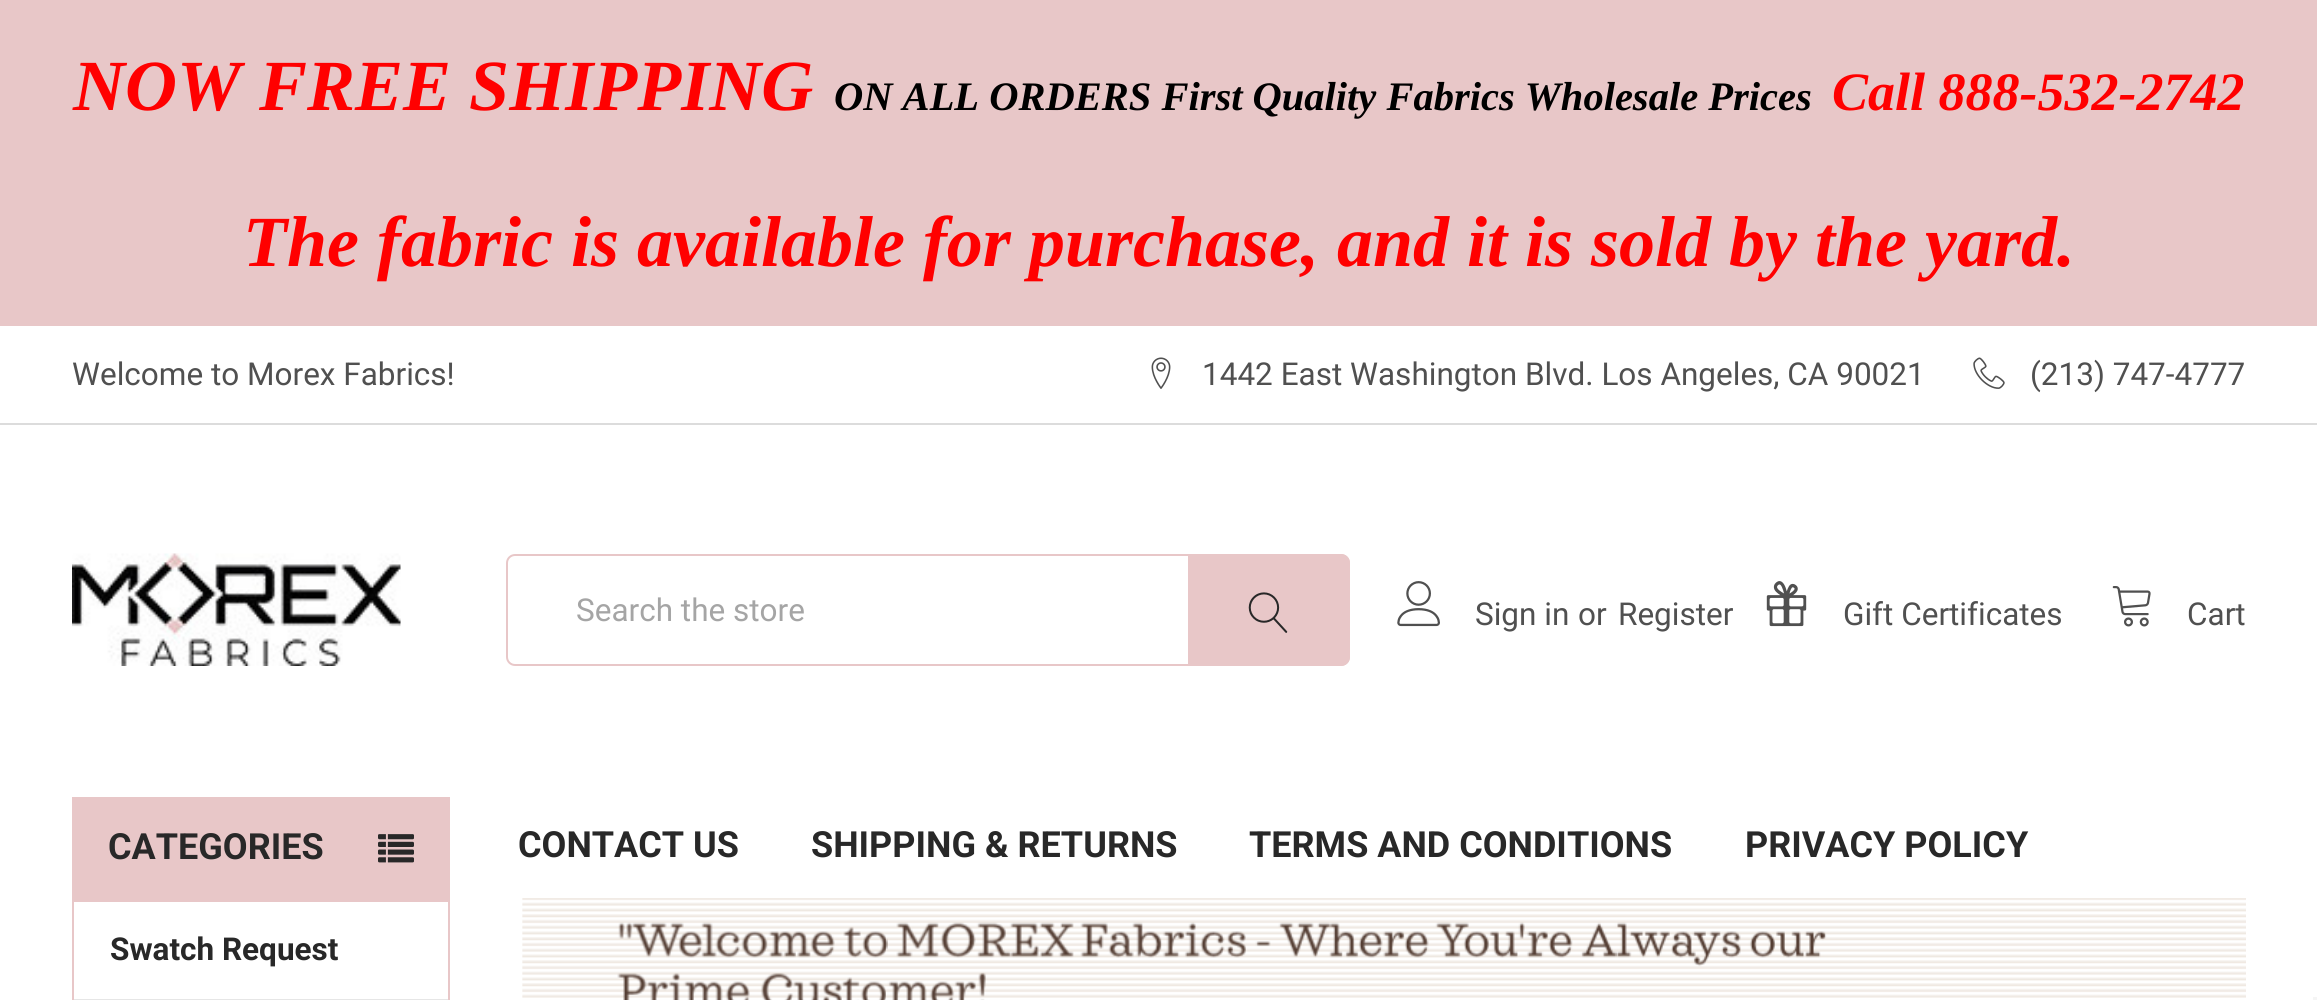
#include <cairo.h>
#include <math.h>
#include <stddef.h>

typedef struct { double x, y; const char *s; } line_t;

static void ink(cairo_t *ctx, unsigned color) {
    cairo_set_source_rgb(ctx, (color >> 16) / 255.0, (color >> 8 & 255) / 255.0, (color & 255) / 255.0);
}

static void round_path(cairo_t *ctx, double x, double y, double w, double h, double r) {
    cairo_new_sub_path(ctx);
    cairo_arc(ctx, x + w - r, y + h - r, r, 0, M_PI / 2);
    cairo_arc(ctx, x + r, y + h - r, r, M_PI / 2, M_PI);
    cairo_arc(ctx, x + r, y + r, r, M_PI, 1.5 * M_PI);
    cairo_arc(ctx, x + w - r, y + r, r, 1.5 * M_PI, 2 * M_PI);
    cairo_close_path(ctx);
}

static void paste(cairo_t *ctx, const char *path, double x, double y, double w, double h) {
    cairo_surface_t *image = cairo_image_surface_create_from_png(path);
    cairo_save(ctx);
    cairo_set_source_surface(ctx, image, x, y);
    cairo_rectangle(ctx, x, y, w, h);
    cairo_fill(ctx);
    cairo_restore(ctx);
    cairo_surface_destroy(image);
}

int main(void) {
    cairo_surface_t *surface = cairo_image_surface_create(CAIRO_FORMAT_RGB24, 2317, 1000);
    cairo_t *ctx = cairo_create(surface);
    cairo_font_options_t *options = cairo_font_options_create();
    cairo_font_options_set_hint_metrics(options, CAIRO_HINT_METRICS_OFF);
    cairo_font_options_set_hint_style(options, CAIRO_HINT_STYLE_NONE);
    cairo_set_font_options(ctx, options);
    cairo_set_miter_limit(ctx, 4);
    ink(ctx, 0xFFFFFF);
    cairo_paint(ctx);
    ink(ctx, 0xE8C7C8);
    cairo_rectangle(ctx, 0, 0, 2317, 326);
    cairo_fill(ctx);
    cairo_select_font_face(ctx, "Liberation Serif", CAIRO_FONT_SLANT_ITALIC, CAIRO_FONT_WEIGHT_BOLD);
    cairo_set_font_size(ctx, 72);
    ink(ctx, 0xFF0000);
    cairo_move_to(ctx, 73, 110);
    cairo_show_text(ctx, "NOW FREE SHIPPING");
    cairo_set_font_size(ctx, 40.5);
    ink(ctx, 0x000000);
    cairo_move_to(ctx, 834, 110);
    cairo_show_text(ctx, "ON ALL ORDERS First Quality Fabrics Wholesale Prices");
    cairo_set_font_size(ctx, 54);
    ink(ctx, 0xFF0000);
    cairo_move_to(ctx, 1832, 110);
    cairo_show_text(ctx, "Call 888-532-2742");
    cairo_set_font_size(ctx, 72);
    cairo_move_to(ctx, 243, 266);
    cairo_show_text(ctx, "The fabric is available for purchase, and it is sold by the yard.");
    ink(ctx, 0xDCDCDC);
    cairo_rectangle(ctx, 0, 423, 2317, 2);
    cairo_fill(ctx);
    cairo_select_font_face(ctx, "Roboto", CAIRO_FONT_SLANT_NORMAL, CAIRO_FONT_WEIGHT_NORMAL);
    cairo_set_font_size(ctx, 31.5);
    ink(ctx, 0x505050);
    cairo_move_to(ctx, 72, 385);
    cairo_show_text(ctx, "Welcome to Morex Fabrics!");
    paste(ctx, "media/1.png", 1151, 357, 20, 32);
    cairo_move_to(ctx, 1202, 385);
    cairo_show_text(ctx, "1442 East Washington Blvd. Los Angeles, CA 90021");
    paste(ctx, "media/2.png", 1973, 357, 32, 32);
    cairo_move_to(ctx, 2030, 385);
    cairo_show_text(ctx, "(213) 747-4777");
    paste(ctx, "media/3.png", 72, 553, 329, 113);
    round_path(ctx, 507, 555, 842, 110, 8);
    ink(ctx, 0xE8C7C8);
    cairo_stroke(ctx);
    ink(ctx, 0xA5A5A5);
    cairo_move_to(ctx, 576, 621);
    cairo_show_text(ctx, "Search the store");
    ink(ctx, 0xE8C7C8);
    cairo_new_path(ctx);
    cairo_move_to(ctx, 1188, 554);
    cairo_line_to(ctx, 1341, 554);
    cairo_curve_to(ctx, 1346, 554, 1350, 558, 1350, 563);
    cairo_line_to(ctx, 1350, 657);
    cairo_curve_to(ctx, 1350, 662, 1346, 666, 1341, 666);
    cairo_line_to(ctx, 1188, 666);
    cairo_close_path(ctx);
    cairo_fill(ctx);
    paste(ctx, "media/4.png", 1248, 592, 40, 41);
    paste(ctx, "media/5.png", 1397, 581, 43, 46);
    ink(ctx, 0x505050);
    {
        static const line_t items[] = {
            {1475, 625, "Sign in"},
            {1578, 625, "or"},
            {1618, 625, "Register"},
        };
        for (size_t i = 0; i < sizeof items / sizeof *items; i++) {
            cairo_move_to(ctx, items[i].x, items[i].y);
            cairo_show_text(ctx, items[i].s);
        }
    }
    paste(ctx, "media/6.png", 1766, 581, 41, 46);
    cairo_move_to(ctx, 1843, 625);
    cairo_show_text(ctx, "Gift Certificates");
    paste(ctx, "media/7.png", 2112, 586, 39, 41);
    cairo_move_to(ctx, 2187, 625);
    cairo_show_text(ctx, "Cart");
    cairo_select_font_face(ctx, "Roboto", CAIRO_FONT_SLANT_NORMAL, CAIRO_FONT_WEIGHT_BOLD);
    cairo_set_font_size(ctx, 36);
    ink(ctx, 0x282828);
    {
        static const line_t items[] = {
            {518, 857, "CONTACT US"},
            {811, 857, "SHIPPING & RETURNS"},
            {1249, 857, "TERMS AND CONDITIONS"},
            {1745, 857, "PRIVACY POLICY"},
        };
        for (size_t i = 0; i < sizeof items / sizeof *items; i++) {
            cairo_move_to(ctx, items[i].x, items[i].y);
            cairo_show_text(ctx, items[i].s);
        }
    }
    ink(ctx, 0xE8C7C8);
    cairo_rectangle(ctx, 72, 797, 378, 103);
    cairo_fill(ctx);
    ink(ctx, 0x282828);
    cairo_move_to(ctx, 108, 859);
    cairo_show_text(ctx, "CATEGORIES");
    paste(ctx, "media/8.png", 378, 834, 36, 29);
    cairo_rectangle(ctx, 73, 901, 376, 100);
    ink(ctx, 0xE8C7C8);
    cairo_stroke(ctx);
    cairo_set_font_size(ctx, 31.5);
    ink(ctx, 0x282828);
    cairo_move_to(ctx, 110, 960);
    cairo_show_text(ctx, "Swatch Request");
    ink(ctx, 0xE6E6E6);
    cairo_rectangle(ctx, 74, 999, 374, 1);
    cairo_fill(ctx);
    paste(ctx, "media/9.png", 522, 898, 1724, 102);
    ink(ctx, 0xF5F5F5);
    cairo_rectangle(ctx, 2313, 997, 4, 3);
    cairo_fill(ctx);
    cairo_surface_write_to_png(surface, "image.png");
    cairo_font_options_destroy(options);
    cairo_destroy(ctx);
    cairo_surface_destroy(surface);
    return 0;
}
